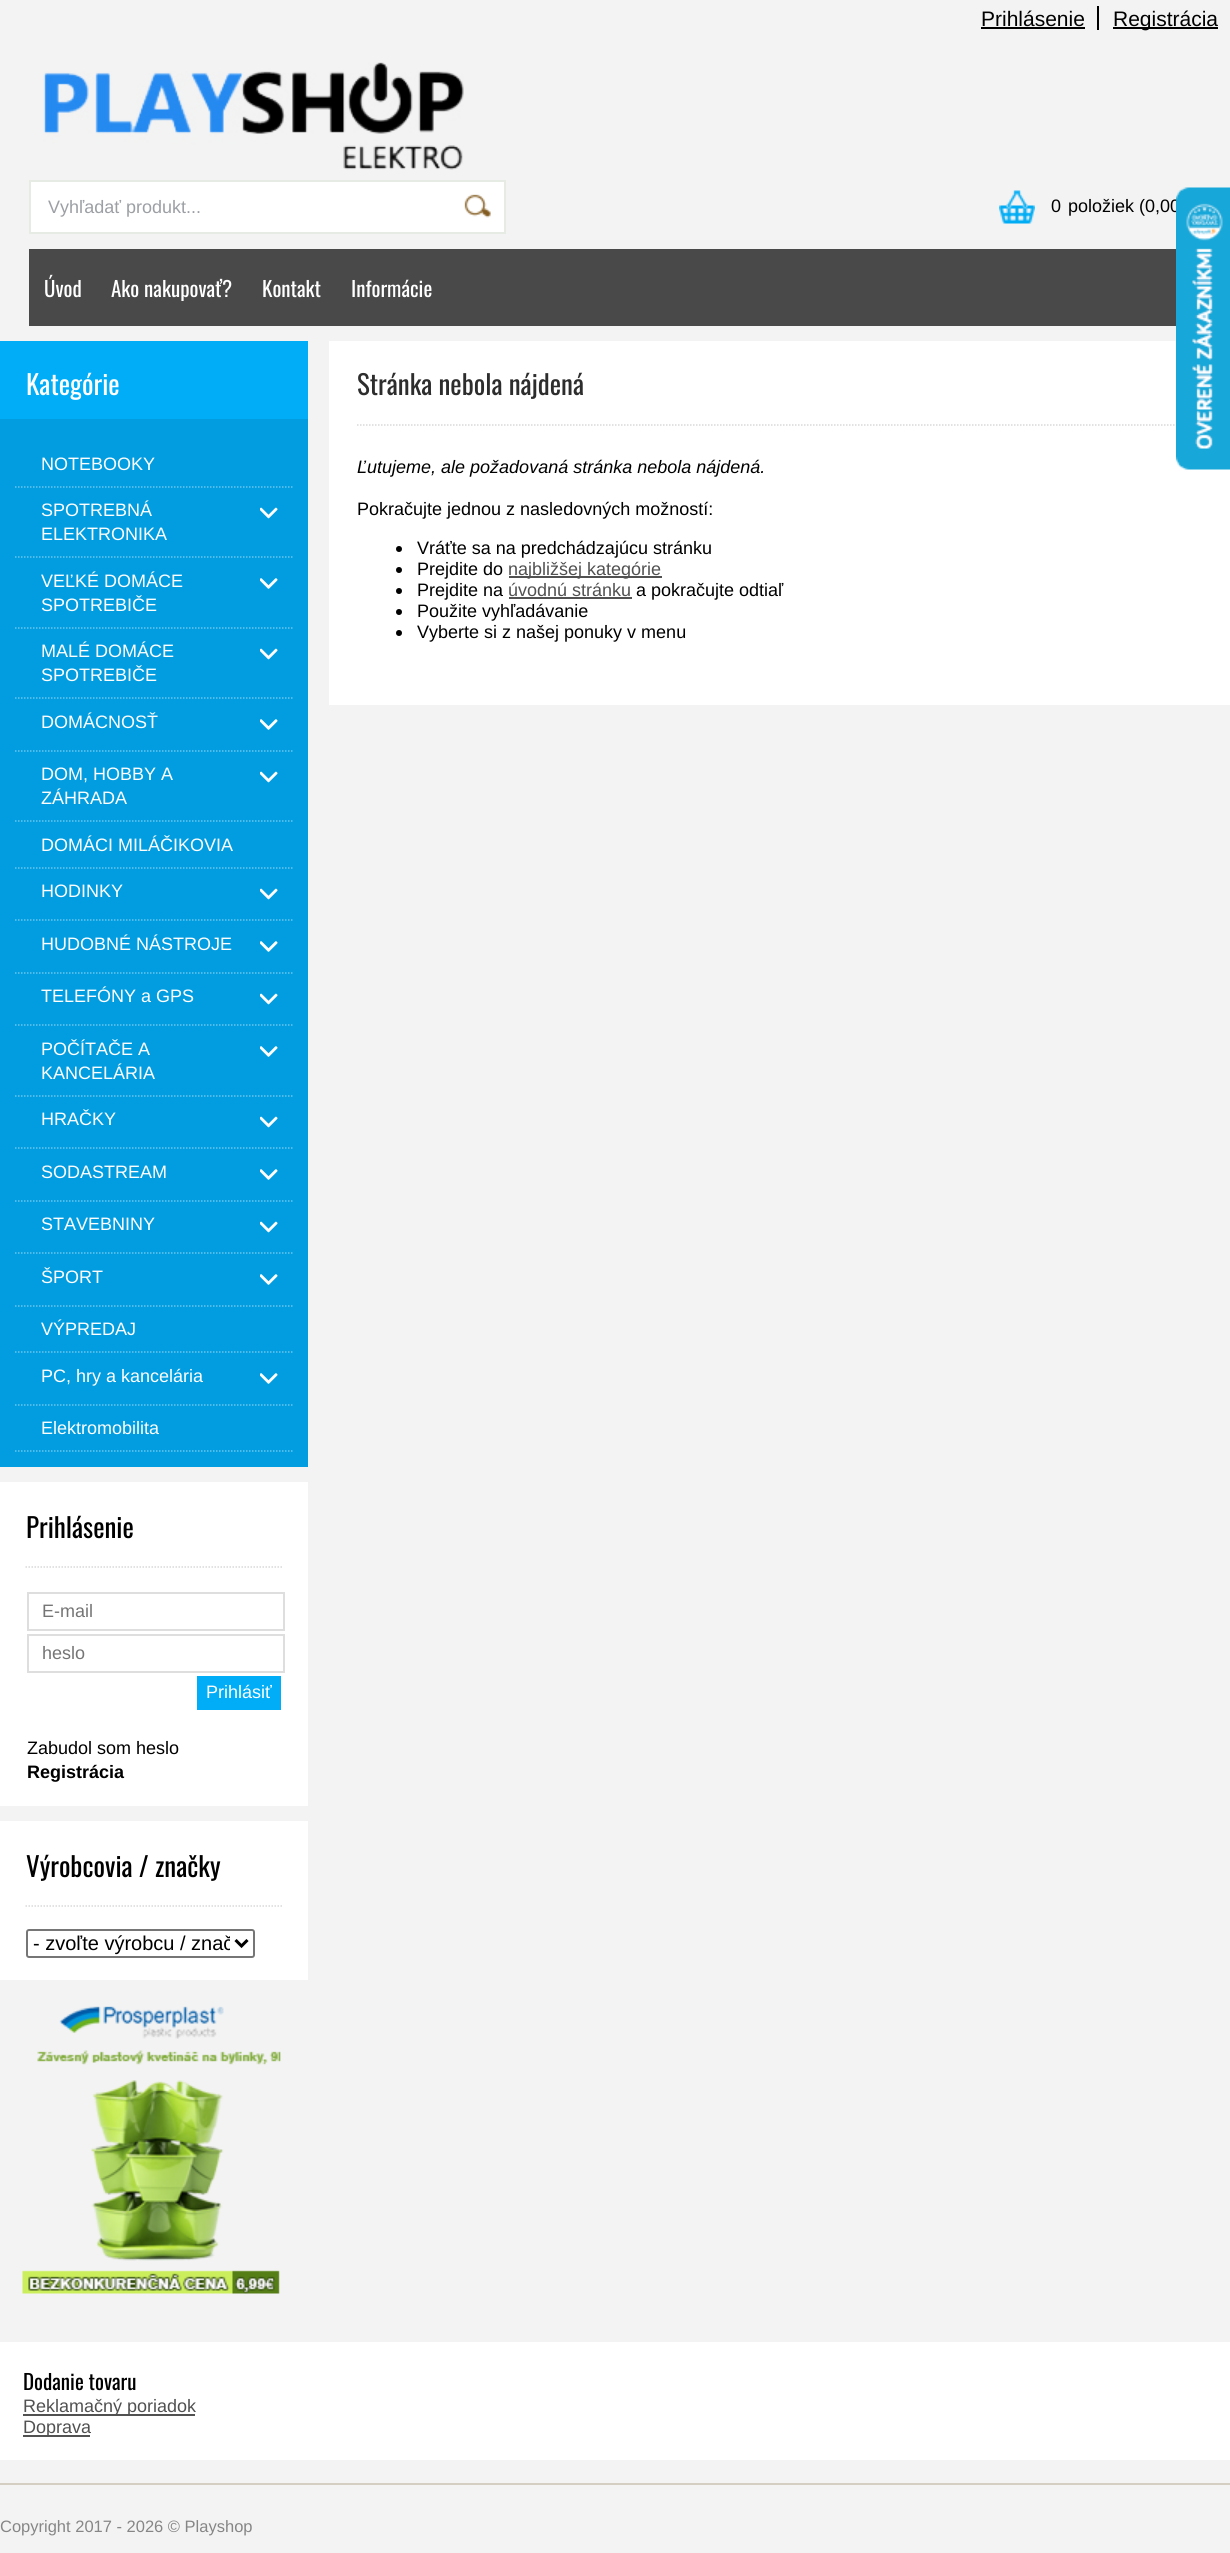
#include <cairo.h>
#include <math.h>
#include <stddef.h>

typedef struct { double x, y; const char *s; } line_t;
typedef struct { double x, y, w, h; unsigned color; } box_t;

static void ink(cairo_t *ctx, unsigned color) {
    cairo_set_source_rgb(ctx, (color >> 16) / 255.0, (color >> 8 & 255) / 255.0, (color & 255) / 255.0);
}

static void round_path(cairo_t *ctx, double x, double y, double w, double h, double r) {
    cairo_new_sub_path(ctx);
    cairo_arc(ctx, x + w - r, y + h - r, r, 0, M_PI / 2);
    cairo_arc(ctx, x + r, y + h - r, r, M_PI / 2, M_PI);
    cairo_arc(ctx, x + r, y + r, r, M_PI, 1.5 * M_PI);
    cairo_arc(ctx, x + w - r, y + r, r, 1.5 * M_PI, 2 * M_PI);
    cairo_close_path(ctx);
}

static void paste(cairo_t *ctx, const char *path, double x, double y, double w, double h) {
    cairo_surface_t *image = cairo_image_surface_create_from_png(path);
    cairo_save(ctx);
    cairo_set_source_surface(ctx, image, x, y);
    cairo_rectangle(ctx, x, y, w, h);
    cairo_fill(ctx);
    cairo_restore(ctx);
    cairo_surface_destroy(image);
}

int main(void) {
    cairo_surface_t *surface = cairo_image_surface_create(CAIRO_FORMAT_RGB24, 1230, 2553);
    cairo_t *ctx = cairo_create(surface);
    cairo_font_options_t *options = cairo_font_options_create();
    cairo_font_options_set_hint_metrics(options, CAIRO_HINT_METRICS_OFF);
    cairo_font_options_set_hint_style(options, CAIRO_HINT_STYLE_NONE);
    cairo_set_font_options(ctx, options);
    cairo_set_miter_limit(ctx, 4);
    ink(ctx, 0xF3F3F3);
    cairo_paint(ctx);
    cairo_select_font_face(ctx, "Liberation Sans", CAIRO_FONT_SLANT_NORMAL, CAIRO_FONT_WEIGHT_NORMAL);
    cairo_set_font_size(ctx, 21);
    ink(ctx, 0x000000);
    cairo_move_to(ctx, 981, 26);
    cairo_show_text(ctx, "Prihlásenie");
    {
        static const box_t items[] = {
            {1097, 6, 2, 24, 0x000000},
            {981, 27, 104, 2, 0x000000},
            {1113, 27, 105, 2, 0x000000},
        };
        for (size_t i = 0; i < sizeof items / sizeof *items; i++) {
            ink(ctx, items[i].color);
            cairo_rectangle(ctx, items[i].x, items[i].y, items[i].w, items[i].h);
            cairo_fill(ctx);
        }
    }
    cairo_move_to(ctx, 1113, 26);
    cairo_show_text(ctx, "Registrácia");
    paste(ctx, "media/1.png", 43, 62, 421, 108);
    ink(ctx, 0xFFFFFF);
    cairo_rectangle(ctx, 30, 181, 475, 52);
    cairo_fill_preserve(ctx);
    ink(ctx, 0xE6EBE3);
    cairo_stroke(ctx);
    cairo_set_font_size(ctx, 18);
    ink(ctx, 0x9C9FA4);
    cairo_move_to(ctx, 48, 213);
    cairo_show_text(ctx, "Vyhľadať produkt...");
    paste(ctx, "media/2.png", 464, 194, 27, 24);
    paste(ctx, "media/3.png", 999, 190, 36, 34);
    ink(ctx, 0x000000);
    cairo_move_to(ctx, 1051, 212);
    cairo_show_text(ctx, "0");
    cairo_move_to(ctx, 1068, 212);
    cairo_show_text(ctx, "položiek (0,00");
    ink(ctx, 0x494949);
    cairo_rectangle(ctx, 29, 249, 1147, 77);
    cairo_fill(ctx);
    cairo_select_font_face(ctx, "Oswald", CAIRO_FONT_SLANT_NORMAL, CAIRO_FONT_WEIGHT_NORMAL);
    cairo_set_font_size(ctx, 21);
    ink(ctx, 0xFFFFFF);
    {
        static const line_t items[] = {
            {44, 297, "Úvod"},
            {111, 297, "Ako nakupovať?"},
            {262, 297, "Kontakt"},
            {351, 297, "Informácie"},
        };
        for (size_t i = 0; i < sizeof items / sizeof *items; i++) {
            cairo_move_to(ctx, items[i].x, items[i].y);
            cairo_show_text(ctx, items[i].s);
        }
    }
    ink(ctx, 0x029DE0);
    cairo_rectangle(ctx, 0, 419, 308, 1048);
    cairo_fill(ctx);
    ink(ctx, 0x01ADF7);
    cairo_rectangle(ctx, 0, 341, 308, 78);
    cairo_fill(ctx);
    cairo_set_font_size(ctx, 27);
    ink(ctx, 0xFFFFFF);
    cairo_move_to(ctx, 26, 395);
    cairo_show_text(ctx, "Kategórie");
    cairo_new_path(ctx);
    cairo_move_to(ctx, 15, 487);
    cairo_line_to(ctx, 292.5, 487);
    ink(ctx, 0x67C4EC);
    cairo_set_line_width(ctx, 1.5);
    cairo_set_dash(ctx, (double[]){1.5, 1.5}, 2, 0);
    cairo_stroke(ctx);
    cairo_select_font_face(ctx, "Liberation Sans", CAIRO_FONT_SLANT_NORMAL, CAIRO_FONT_WEIGHT_NORMAL);
    cairo_set_font_size(ctx, 18);
    ink(ctx, 0xFFFFFF);
    cairo_move_to(ctx, 41, 470);
    cairo_show_text(ctx, "NOTEBOOKY");
    cairo_new_path(ctx);
    cairo_move_to(ctx, 15, 557);
    cairo_line_to(ctx, 292.5, 557);
    ink(ctx, 0x67C4EC);
    cairo_stroke(ctx);
    ink(ctx, 0xFFFFFF);
    cairo_move_to(ctx, 41, 516);
    cairo_show_text(ctx, "SPOTREBNÁ");
    cairo_move_to(ctx, 41, 540);
    cairo_show_text(ctx, "ELEKTRONIKA");
    paste(ctx, "media/4.png", 260, 507, 18, 12);
    cairo_new_path(ctx);
    cairo_move_to(ctx, 15, 628);
    cairo_line_to(ctx, 292.5, 628);
    ink(ctx, 0x67C4EC);
    cairo_stroke(ctx);
    ink(ctx, 0xFFFFFF);
    cairo_move_to(ctx, 41, 587);
    cairo_show_text(ctx, "VEĽKÉ DOMÁCE");
    cairo_move_to(ctx, 41, 611);
    cairo_show_text(ctx, "SPOTREBIČE");
    paste(ctx, "media/5.png", 260, 578, 18, 11);
    cairo_new_path(ctx);
    cairo_move_to(ctx, 15, 698);
    cairo_line_to(ctx, 292.5, 698);
    ink(ctx, 0x67C4EC);
    cairo_stroke(ctx);
    ink(ctx, 0xFFFFFF);
    cairo_move_to(ctx, 41, 657);
    cairo_show_text(ctx, "MALÉ DOMÁCE");
    cairo_move_to(ctx, 41, 681);
    cairo_show_text(ctx, "SPOTREBIČE");
    paste(ctx, "media/4.png", 260, 648, 18, 12);
    cairo_new_path(ctx);
    cairo_move_to(ctx, 15, 751);
    cairo_line_to(ctx, 292.5, 751);
    ink(ctx, 0x67C4EC);
    cairo_stroke(ctx);
    ink(ctx, 0xFFFFFF);
    cairo_move_to(ctx, 41, 728);
    cairo_show_text(ctx, "DOMÁCNOSŤ");
    paste(ctx, "media/5.png", 260, 719, 18, 11);
    cairo_new_path(ctx);
    cairo_move_to(ctx, 15, 821);
    cairo_line_to(ctx, 292.5, 821);
    ink(ctx, 0x67C4EC);
    cairo_stroke(ctx);
    ink(ctx, 0xFFFFFF);
    cairo_move_to(ctx, 41, 780);
    cairo_show_text(ctx, "DOM, HOBBY A");
    cairo_move_to(ctx, 41, 804);
    cairo_show_text(ctx, "ZÁHRADA");
    paste(ctx, "media/4.png", 260, 771, 18, 12);
    cairo_new_path(ctx);
    cairo_move_to(ctx, 15, 868);
    cairo_line_to(ctx, 292.5, 868);
    ink(ctx, 0x67C4EC);
    cairo_stroke(ctx);
    ink(ctx, 0xFFFFFF);
    cairo_move_to(ctx, 41, 851);
    cairo_show_text(ctx, "DOMÁCI MILÁČIKOVIA");
    cairo_new_path(ctx);
    cairo_move_to(ctx, 15, 920);
    cairo_line_to(ctx, 292.5, 920);
    ink(ctx, 0x67C4EC);
    cairo_stroke(ctx);
    ink(ctx, 0xFFFFFF);
    cairo_move_to(ctx, 41, 897);
    cairo_show_text(ctx, "HODINKY");
    paste(ctx, "media/4.png", 260, 888, 18, 12);
    cairo_new_path(ctx);
    cairo_move_to(ctx, 15, 973);
    cairo_line_to(ctx, 292.5, 973);
    ink(ctx, 0x67C4EC);
    cairo_stroke(ctx);
    ink(ctx, 0xFFFFFF);
    cairo_move_to(ctx, 41, 950);
    cairo_show_text(ctx, "HUDOBNÉ NÁSTROJE");
    paste(ctx, "media/5.png", 260, 941, 18, 11);
    cairo_new_path(ctx);
    cairo_move_to(ctx, 15, 1025);
    cairo_line_to(ctx, 292.5, 1025);
    ink(ctx, 0x67C4EC);
    cairo_stroke(ctx);
    ink(ctx, 0xFFFFFF);
    cairo_move_to(ctx, 41, 1002);
    cairo_show_text(ctx, "TELEFÓNY a GPS");
    paste(ctx, "media/4.png", 260, 993, 18, 12);
    cairo_new_path(ctx);
    cairo_move_to(ctx, 15, 1096);
    cairo_line_to(ctx, 292.5, 1096);
    ink(ctx, 0x67C4EC);
    cairo_stroke(ctx);
    ink(ctx, 0xFFFFFF);
    cairo_move_to(ctx, 41, 1055);
    cairo_show_text(ctx, "POČÍTAČE A");
    cairo_move_to(ctx, 41, 1079);
    cairo_show_text(ctx, "KANCELÁRIA");
    paste(ctx, "media/5.png", 260, 1046, 18, 11);
    cairo_new_path(ctx);
    cairo_move_to(ctx, 15, 1148);
    cairo_line_to(ctx, 292.5, 1148);
    ink(ctx, 0x67C4EC);
    cairo_stroke(ctx);
    ink(ctx, 0xFFFFFF);
    cairo_move_to(ctx, 41, 1125);
    cairo_show_text(ctx, "HRAČKY");
    paste(ctx, "media/4.png", 260, 1116, 18, 12);
    cairo_new_path(ctx);
    cairo_move_to(ctx, 15, 1201);
    cairo_line_to(ctx, 292.5, 1201);
    ink(ctx, 0x67C4EC);
    cairo_stroke(ctx);
    ink(ctx, 0xFFFFFF);
    cairo_move_to(ctx, 41, 1178);
    cairo_show_text(ctx, "SODASTREAM");
    paste(ctx, "media/5.png", 260, 1169, 18, 11);
    cairo_new_path(ctx);
    cairo_move_to(ctx, 15, 1253);
    cairo_line_to(ctx, 292.5, 1253);
    ink(ctx, 0x67C4EC);
    cairo_stroke(ctx);
    ink(ctx, 0xFFFFFF);
    cairo_move_to(ctx, 41, 1230);
    cairo_show_text(ctx, "STAVEBNINY");
    paste(ctx, "media/4.png", 260, 1221, 18, 12);
    cairo_new_path(ctx);
    cairo_move_to(ctx, 15, 1306);
    cairo_line_to(ctx, 292.5, 1306);
    ink(ctx, 0x67C4EC);
    cairo_stroke(ctx);
    ink(ctx, 0xFFFFFF);
    cairo_move_to(ctx, 41, 1283);
    cairo_show_text(ctx, "ŠPORT");
    paste(ctx, "media/5.png", 260, 1274, 18, 11);
    cairo_new_path(ctx);
    cairo_move_to(ctx, 15, 1352);
    cairo_line_to(ctx, 292.5, 1352);
    ink(ctx, 0x67C4EC);
    cairo_stroke(ctx);
    ink(ctx, 0xFFFFFF);
    cairo_move_to(ctx, 41, 1335);
    cairo_show_text(ctx, "VÝPREDAJ");
    cairo_new_path(ctx);
    cairo_move_to(ctx, 15, 1405);
    cairo_line_to(ctx, 292.5, 1405);
    ink(ctx, 0x67C4EC);
    cairo_stroke(ctx);
    ink(ctx, 0xFFFFFF);
    cairo_move_to(ctx, 41, 1382);
    cairo_show_text(ctx, "PC, hry a kancelária");
    paste(ctx, "media/5.png", 260, 1373, 18, 11);
    cairo_new_path(ctx);
    cairo_move_to(ctx, 15, 1451);
    cairo_line_to(ctx, 292.5, 1451);
    ink(ctx, 0x67C4EC);
    cairo_stroke(ctx);
    ink(ctx, 0xFFFFFF);
    cairo_move_to(ctx, 41, 1434);
    cairo_show_text(ctx, "Elektromobilita");
    cairo_rectangle(ctx, 0, 1482, 308, 324);
    cairo_fill(ctx);
    cairo_new_path(ctx);
    cairo_move_to(ctx, 25.5, 1567);
    cairo_line_to(ctx, 282, 1567);
    ink(ctx, 0xD8D8D8);
    cairo_stroke(ctx);
    cairo_select_font_face(ctx, "Oswald", CAIRO_FONT_SLANT_NORMAL, CAIRO_FONT_WEIGHT_NORMAL);
    cairo_set_font_size(ctx, 27);
    ink(ctx, 0x000000);
    cairo_move_to(ctx, 26, 1538);
    cairo_show_text(ctx, "Prihlásenie");
    cairo_rectangle(ctx, 28, 1593, 256, 37);
    ink(ctx, 0xDEDEDE);
    cairo_set_line_width(ctx, 2);
    cairo_set_dash(ctx, NULL, 0, 0);
    cairo_stroke(ctx);
    cairo_select_font_face(ctx, "Liberation Sans", CAIRO_FONT_SLANT_NORMAL, CAIRO_FONT_WEIGHT_NORMAL);
    cairo_set_font_size(ctx, 18);
    ink(ctx, 0x757575);
    cairo_move_to(ctx, 42, 1617);
    cairo_show_text(ctx, "E-mail");
    cairo_rectangle(ctx, 28, 1635, 256, 37);
    ink(ctx, 0xDEDEDE);
    cairo_stroke(ctx);
    ink(ctx, 0x757575);
    cairo_move_to(ctx, 42, 1659);
    cairo_show_text(ctx, "heslo");
    ink(ctx, 0x01ADF7);
    cairo_rectangle(ctx, 197, 1676, 84, 34);
    cairo_fill(ctx);
    ink(ctx, 0xFFFFFF);
    cairo_move_to(ctx, 206, 1698);
    cairo_show_text(ctx, "Prihlásiť");
    ink(ctx, 0x000000);
    cairo_move_to(ctx, 27, 1754);
    cairo_show_text(ctx, "Zabudol som heslo");
    cairo_select_font_face(ctx, "Liberation Sans", CAIRO_FONT_SLANT_NORMAL, CAIRO_FONT_WEIGHT_BOLD);
    cairo_move_to(ctx, 27, 1778);
    cairo_show_text(ctx, "Registrácia");
    ink(ctx, 0xFFFFFF);
    cairo_rectangle(ctx, 0, 1821, 308, 159);
    cairo_fill(ctx);
    cairo_new_path(ctx);
    cairo_move_to(ctx, 25.5, 1906);
    cairo_line_to(ctx, 282, 1906);
    ink(ctx, 0xD8D8D8);
    cairo_set_line_width(ctx, 1.5);
    cairo_set_dash(ctx, (double[]){1.5, 1.5}, 2, 0);
    cairo_stroke(ctx);
    cairo_select_font_face(ctx, "Oswald", CAIRO_FONT_SLANT_NORMAL, CAIRO_FONT_WEIGHT_NORMAL);
    cairo_set_font_size(ctx, 27);
    ink(ctx, 0x000000);
    cairo_move_to(ctx, 26, 1877);
    cairo_show_text(ctx, "Výrobcovia / značky");
    round_path(ctx, 27, 1930, 227, 27, 2);
    ink(ctx, 0x767676);
    cairo_set_line_width(ctx, 2);
    cairo_set_dash(ctx, NULL, 0, 0);
    cairo_stroke(ctx);
    cairo_new_path(ctx);
    cairo_move_to(ctx, 235.5, 1940);
    cairo_line_to(ctx, 241.5, 1946);
    cairo_line_to(ctx, 247.5, 1940);
    ink(ctx, 0x000000);
    cairo_set_line_width(ctx, 3);
    cairo_stroke(ctx);
    cairo_save(ctx);
    cairo_rectangle(ctx, 33, 1931, 197, 25);
    cairo_clip(ctx);
    cairo_select_font_face(ctx, "Liberation Sans", CAIRO_FONT_SLANT_NORMAL, CAIRO_FONT_WEIGHT_NORMAL);
    cairo_set_font_size(ctx, 20);
    cairo_move_to(ctx, 33, 1950);
    cairo_show_text(ctx, "- zvoľte výrobcu / znač");
    cairo_restore(ctx);
    paste(ctx, "media/6.png", 22, 2006, 259, 288);
    ink(ctx, 0xFFFFFF);
    cairo_rectangle(ctx, 329, 341, 901, 364);
    cairo_fill(ctx);
    cairo_new_path(ctx);
    cairo_move_to(ctx, 357, 425);
    cairo_line_to(ctx, 1201.5, 425);
    ink(ctx, 0xD8D8D8);
    cairo_set_line_width(ctx, 1.5);
    cairo_set_dash(ctx, (double[]){1.5, 1.5}, 2, 0);
    cairo_stroke(ctx);
    ink(ctx, 0x2D2D2D);
    cairo_move_to(ctx, 357, 395);
    cairo_show_text(ctx, "Stránka nebola nájdená");
    cairo_select_font_face(ctx, "Liberation Sans", CAIRO_FONT_SLANT_ITALIC, CAIRO_FONT_WEIGHT_NORMAL);
    cairo_set_font_size(ctx, 18);
    ink(ctx, 0x000000);
    cairo_move_to(ctx, 357, 473);
    cairo_show_text(ctx, "Ľutujeme, ale požadovaná stránka nebola nájdená.");
    cairo_select_font_face(ctx, "Liberation Sans", CAIRO_FONT_SLANT_NORMAL, CAIRO_FONT_WEIGHT_NORMAL);
    cairo_move_to(ctx, 357, 515);
    cairo_show_text(ctx, "Pokračujte jednou z nasledovných možností:");
    cairo_new_path(ctx);
    cairo_arc(ctx, 399, 549, 3, 0, 2 * M_PI);
    cairo_fill(ctx);
    cairo_move_to(ctx, 417, 554);
    cairo_show_text(ctx, "Vráťte sa na predchádzajúcu stránku");
    cairo_new_path(ctx);
    cairo_arc(ctx, 399, 570, 3, 0, 2 * M_PI);
    cairo_fill(ctx);
    cairo_move_to(ctx, 417, 575);
    cairo_show_text(ctx, "Prejdite do");
    ink(ctx, 0x515151);
    cairo_rectangle(ctx, 509, 576, 153, 2);
    cairo_fill(ctx);
    cairo_move_to(ctx, 508, 575);
    cairo_show_text(ctx, "najbližšej kategórie");
    ink(ctx, 0x000000);
    cairo_new_path(ctx);
    cairo_arc(ctx, 399, 591, 3, 0, 2 * M_PI);
    cairo_fill(ctx);
    cairo_move_to(ctx, 417, 596);
    cairo_show_text(ctx, "Prejdite na");
    ink(ctx, 0x515151);
    cairo_move_to(ctx, 508, 596);
    cairo_show_text(ctx, "úvodnú stránku");
    cairo_rectangle(ctx, 509, 597, 123, 2);
    cairo_fill(ctx);
    ink(ctx, 0x000000);
    cairo_move_to(ctx, 636, 596);
    cairo_show_text(ctx, "a pokračujte odtiaľ");
    cairo_new_path(ctx);
    cairo_arc(ctx, 399, 612, 3, 0, 2 * M_PI);
    cairo_fill(ctx);
    cairo_move_to(ctx, 417, 617);
    cairo_show_text(ctx, "Použite vyhľadávanie");
    cairo_new_path(ctx);
    cairo_arc(ctx, 399, 633, 3, 0, 2 * M_PI);
    cairo_fill(ctx);
    cairo_move_to(ctx, 417, 638);
    cairo_show_text(ctx, "Vyberte si z našej ponuky v menu");
    ink(ctx, 0xFFFFFF);
    cairo_rectangle(ctx, 0, 2342, 1230, 118);
    cairo_fill(ctx);
    cairo_select_font_face(ctx, "Oswald", CAIRO_FONT_SLANT_NORMAL, CAIRO_FONT_WEIGHT_NORMAL);
    cairo_set_font_size(ctx, 21);
    ink(ctx, 0x000000);
    cairo_move_to(ctx, 23, 2390);
    cairo_show_text(ctx, "Dodanie tovaru");
    ink(ctx, 0x515151);
    cairo_rectangle(ctx, 23, 2414, 172, 2);
    cairo_fill(ctx);
    cairo_select_font_face(ctx, "Liberation Sans", CAIRO_FONT_SLANT_NORMAL, CAIRO_FONT_WEIGHT_NORMAL);
    cairo_set_font_size(ctx, 18);
    cairo_move_to(ctx, 23, 2412);
    cairo_show_text(ctx, "Reklamačný poriadok");
    cairo_rectangle(ctx, 23, 2435, 67, 2);
    cairo_fill(ctx);
    cairo_move_to(ctx, 23, 2433);
    cairo_show_text(ctx, "Doprava");
    ink(ctx, 0xD4CDC1);
    cairo_rectangle(ctx, 0, 2483, 1230, 2);
    cairo_fill(ctx);
    cairo_set_font_size(ctx, 16.5);
    ink(ctx, 0x868686);
    cairo_move_to(ctx, 0, 2532);
    cairo_show_text(ctx, "Copyright 2017 - 2026 © Playshop");
    paste(ctx, "media/7.png", 1176, 187, 54, 283);
    cairo_surface_write_to_png(surface, "image.png");
    cairo_font_options_destroy(options);
    cairo_destroy(ctx);
    cairo_surface_destroy(surface);
    return 0;
}
